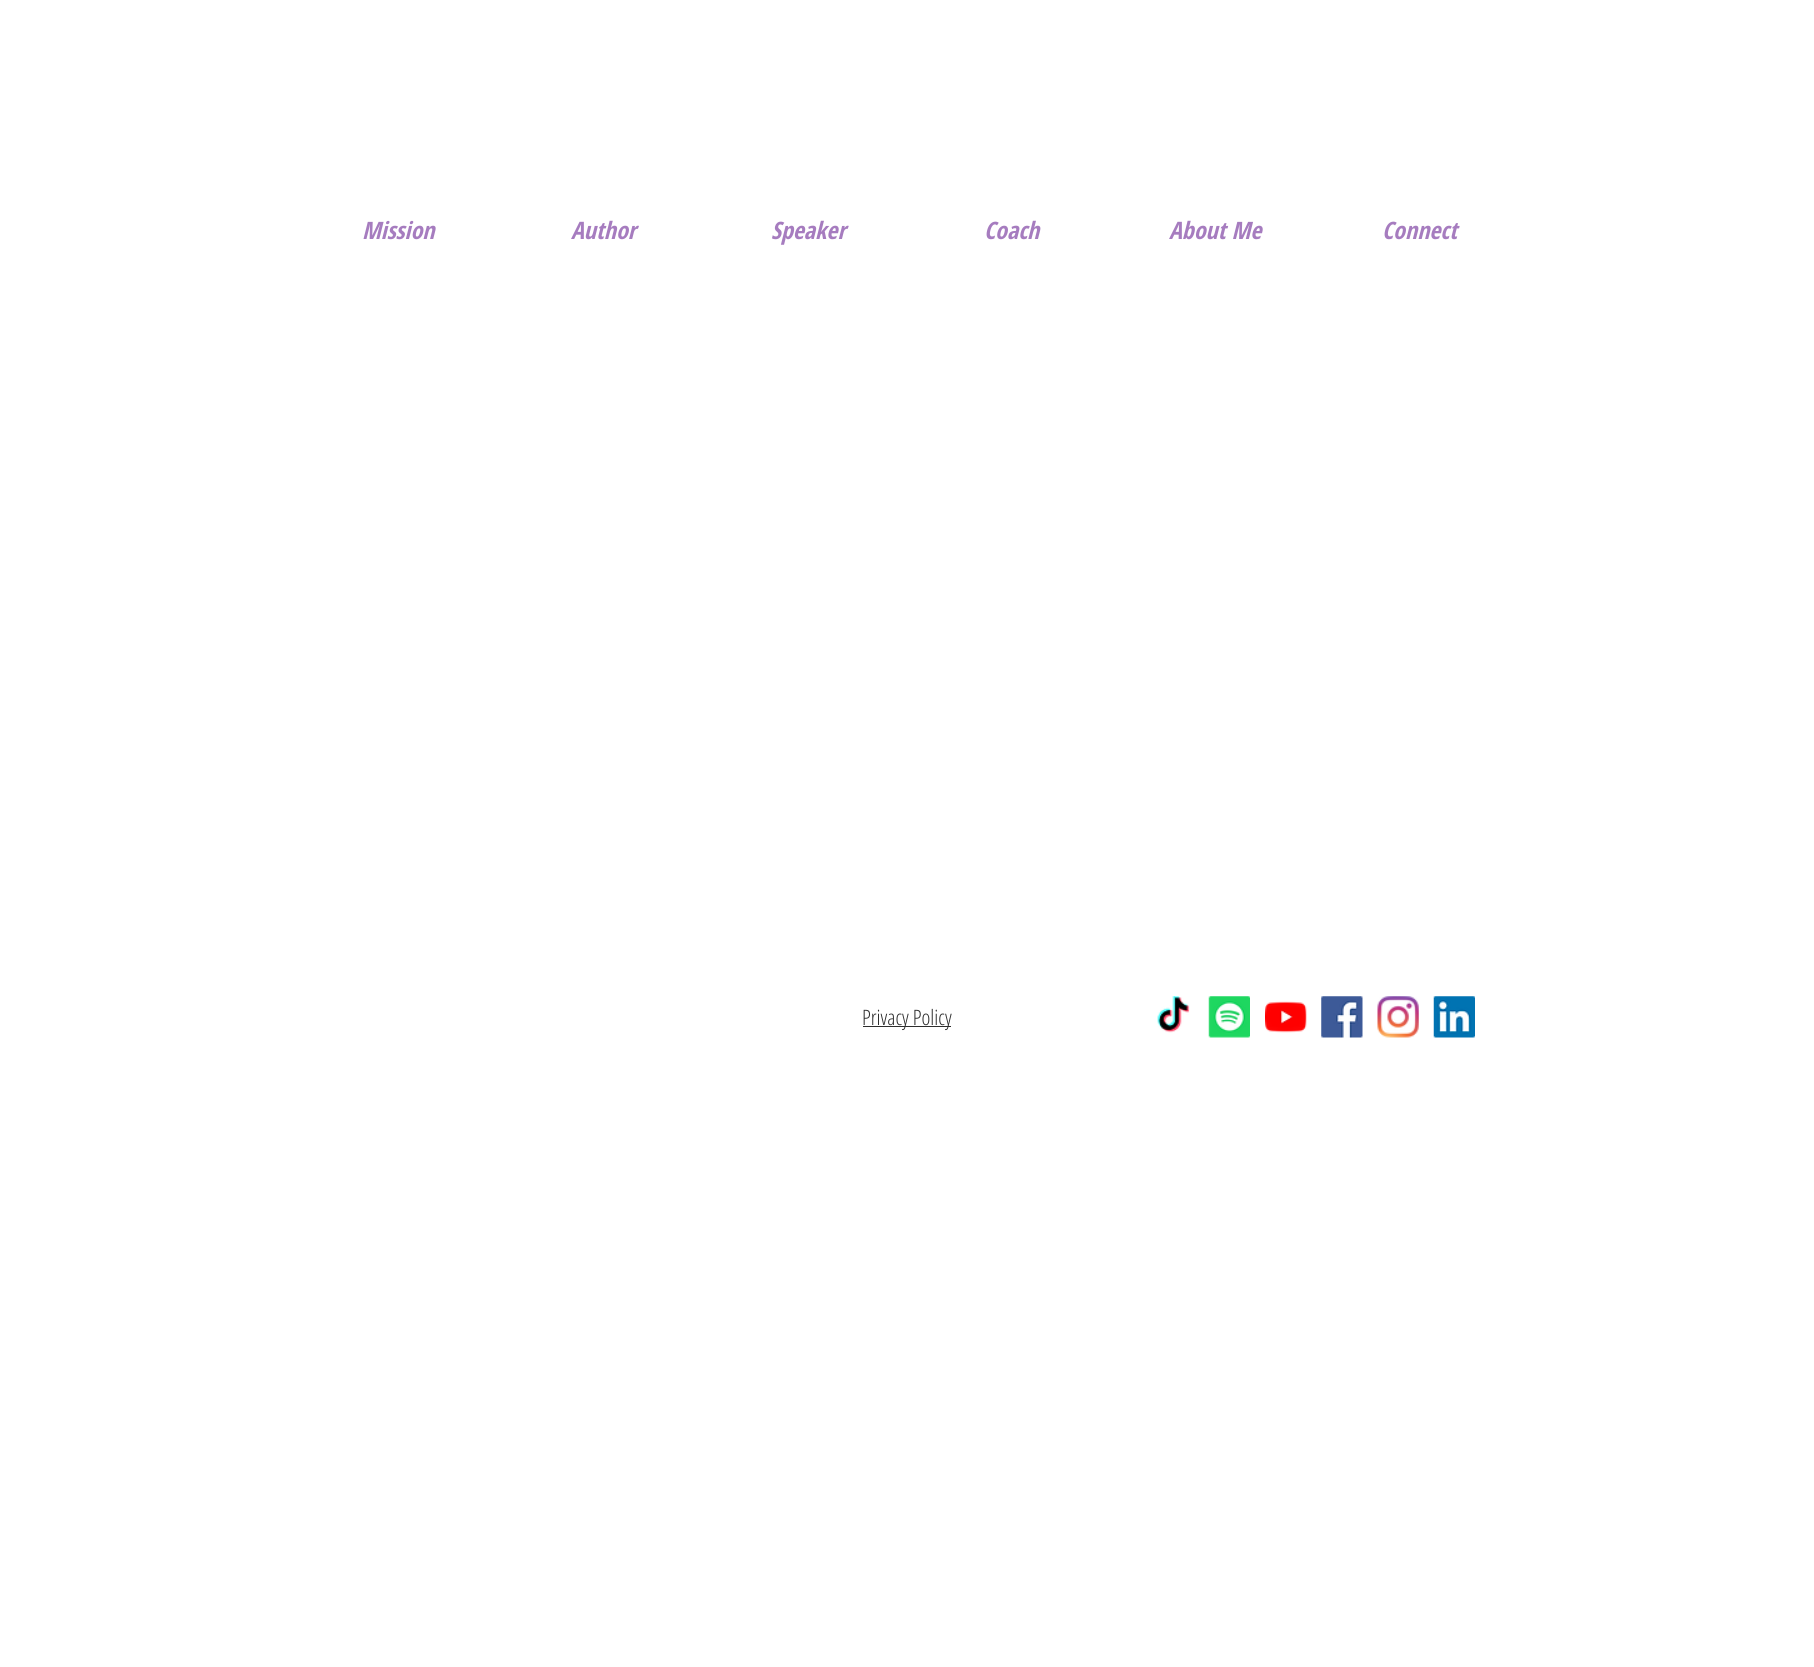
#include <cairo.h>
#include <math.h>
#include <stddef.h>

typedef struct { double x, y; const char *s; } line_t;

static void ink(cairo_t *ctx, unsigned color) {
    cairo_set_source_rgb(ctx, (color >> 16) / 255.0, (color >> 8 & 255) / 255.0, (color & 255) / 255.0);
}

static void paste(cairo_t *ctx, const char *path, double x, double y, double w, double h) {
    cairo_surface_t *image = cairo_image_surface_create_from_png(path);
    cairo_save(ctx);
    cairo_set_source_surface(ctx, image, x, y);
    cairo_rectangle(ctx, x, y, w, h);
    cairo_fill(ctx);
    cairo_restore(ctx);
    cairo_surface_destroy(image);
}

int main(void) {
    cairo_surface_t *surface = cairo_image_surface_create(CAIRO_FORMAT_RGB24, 1814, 1667);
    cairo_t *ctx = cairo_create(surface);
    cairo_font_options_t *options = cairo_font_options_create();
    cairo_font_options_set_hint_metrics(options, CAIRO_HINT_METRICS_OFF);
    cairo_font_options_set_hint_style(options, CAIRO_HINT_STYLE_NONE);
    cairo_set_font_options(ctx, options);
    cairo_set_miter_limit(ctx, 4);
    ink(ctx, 0xFFFFFF);
    cairo_paint(ctx);
    cairo_select_font_face(ctx, "Open Sans Condensed", CAIRO_FONT_SLANT_ITALIC, CAIRO_FONT_WEIGHT_BOLD);
    cairo_set_font_size(ctx, 24);
    ink(ctx, 0xA67CBF);
    {
        static const line_t items[] = {
            {362, 239, "Mission"},
            {571, 239, "Author"},
            {771, 239, "Speaker"},
            {984, 239, "Coach"},
            {1169, 239, "About Me"},
            {1382, 239, "Connect"},
        };
        for (size_t i = 0; i < sizeof items / sizeof *items; i++) {
            cairo_move_to(ctx, items[i].x, items[i].y);
            cairo_show_text(ctx, items[i].s);
        }
    }
    ink(ctx, 0x2D2D2D);
    cairo_rectangle(ctx, 863, 1026, 88, 1);
    cairo_fill(ctx);
    cairo_select_font_face(ctx, "Open Sans Condensed Light", CAIRO_FONT_SLANT_NORMAL, CAIRO_FONT_WEIGHT_NORMAL);
    cairo_set_font_size(ctx, 21.25);
    cairo_move_to(ctx, 862, 1025);
    cairo_show_text(ctx, "Privacy Policy");
    paste(ctx, "media/1.png", 1157, 996, 33, 37);
    paste(ctx, "media/2.png", 1208, 996, 42, 42);
    paste(ctx, "media/3.png", 1265, 1001, 42, 32);
    paste(ctx, "media/4.png", 1321, 996, 42, 42);
    paste(ctx, "media/5.png", 1377, 996, 42, 42);
    paste(ctx, "media/6.png", 1433, 996, 42, 42);
    cairo_surface_write_to_png(surface, "image.png");
    cairo_font_options_destroy(options);
    cairo_destroy(ctx);
    cairo_surface_destroy(surface);
    return 0;
}
